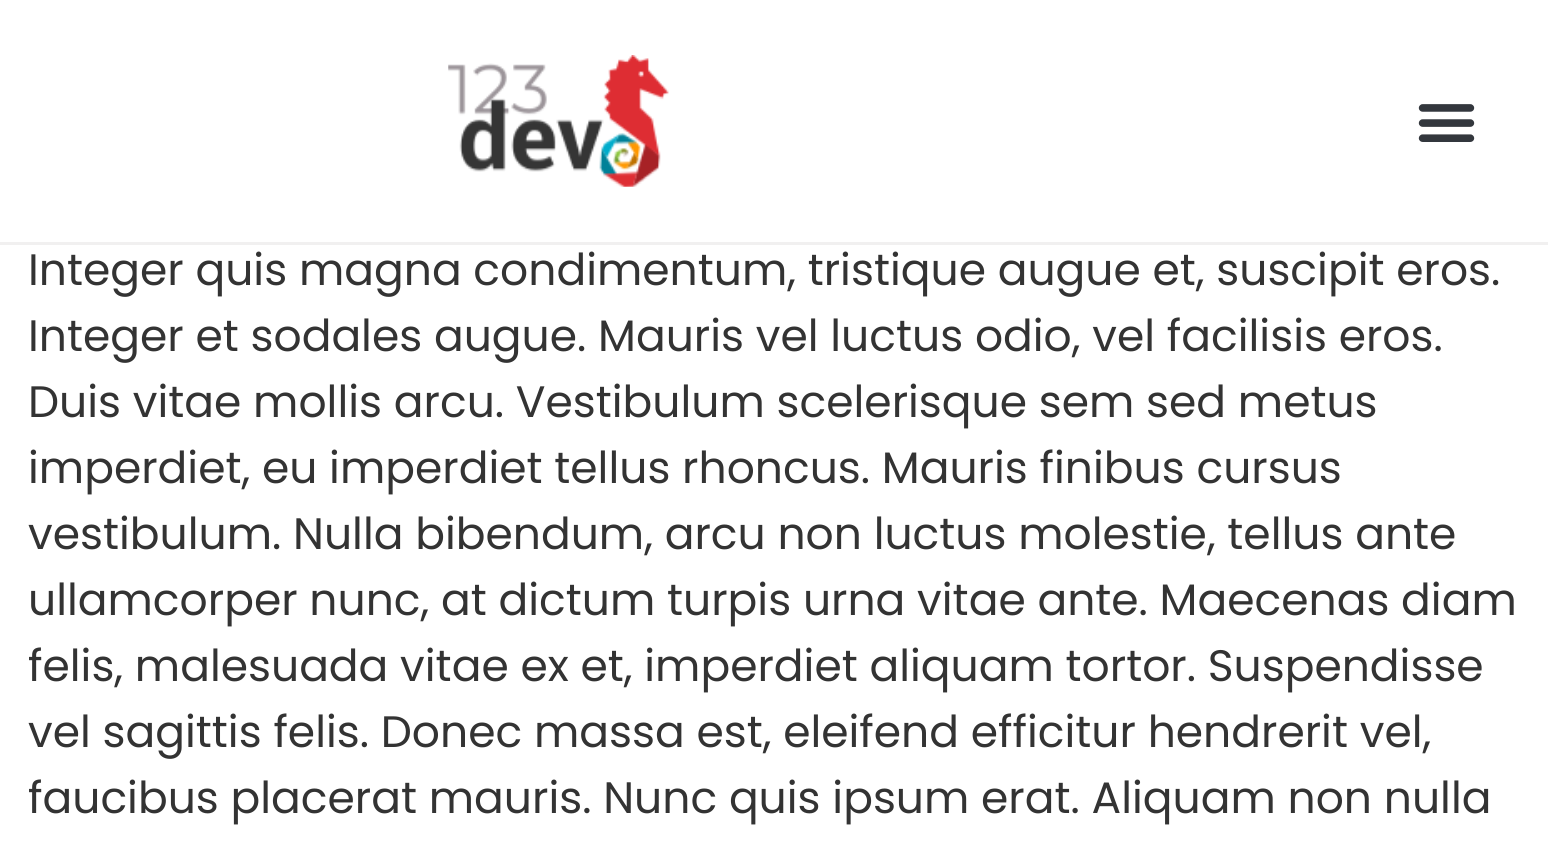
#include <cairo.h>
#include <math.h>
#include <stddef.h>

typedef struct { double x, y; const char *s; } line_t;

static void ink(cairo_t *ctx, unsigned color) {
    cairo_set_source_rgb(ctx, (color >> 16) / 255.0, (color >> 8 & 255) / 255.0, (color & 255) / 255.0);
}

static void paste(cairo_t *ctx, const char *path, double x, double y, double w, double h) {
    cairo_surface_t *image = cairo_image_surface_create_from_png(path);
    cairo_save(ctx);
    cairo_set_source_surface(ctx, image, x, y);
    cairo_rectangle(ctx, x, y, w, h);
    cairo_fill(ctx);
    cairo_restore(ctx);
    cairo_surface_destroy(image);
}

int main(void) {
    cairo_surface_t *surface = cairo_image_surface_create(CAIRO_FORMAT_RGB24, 1548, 848);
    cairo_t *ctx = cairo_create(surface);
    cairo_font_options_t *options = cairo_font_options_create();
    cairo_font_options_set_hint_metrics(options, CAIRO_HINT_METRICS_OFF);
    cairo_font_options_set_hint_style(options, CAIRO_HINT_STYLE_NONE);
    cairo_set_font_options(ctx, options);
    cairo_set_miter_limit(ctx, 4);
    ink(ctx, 0xFFFFFF);
    cairo_paint(ctx);
    ink(ctx, 0xF1F0F0);
    cairo_rectangle(ctx, 0, 242, 1548, 3);
    cairo_fill(ctx);
    paste(ctx, "media/1.png", 448, 55, 221, 132);
    paste(ctx, "media/2.png", 1418, 104, 57, 38);
    cairo_select_font_face(ctx, "Poppins", CAIRO_FONT_SLANT_NORMAL, CAIRO_FONT_WEIGHT_NORMAL);
    cairo_set_font_size(ctx, 44);
    ink(ctx, 0x333333);
    {
        static const line_t items[] = {
            {28, 285, "Integer quis magna condimentum, tristique augue et, suscipit eros."},
            {28, 351, "Integer et sodales augue. Mauris vel luctus odio, vel facilisis eros."},
            {28, 417, "Duis vitae mollis arcu. Vestibulum scelerisque sem sed metus"},
            {28, 483, "imperdiet, eu imperdiet tellus rhoncus. Mauris finibus cursus"},
            {28, 549, "vestibulum. Nulla bibendum, arcu non luctus molestie, tellus ante"},
            {28, 615, "ullamcorper nunc, at dictum turpis urna vitae ante. Maecenas diam"},
            {28, 681, "felis, malesuada vitae ex et, imperdiet aliquam tortor. Suspendisse"},
            {28, 747, "vel sagittis felis. Donec massa est, eleifend efficitur hendrerit vel,"},
            {28, 813, "faucibus placerat mauris. Nunc quis ipsum erat. Aliquam non nulla"},
        };
        for (size_t i = 0; i < sizeof items / sizeof *items; i++) {
            cairo_move_to(ctx, items[i].x, items[i].y);
            cairo_show_text(ctx, items[i].s);
        }
    }
    cairo_surface_write_to_png(surface, "image.png");
    cairo_font_options_destroy(options);
    cairo_destroy(ctx);
    cairo_surface_destroy(surface);
    return 0;
}
